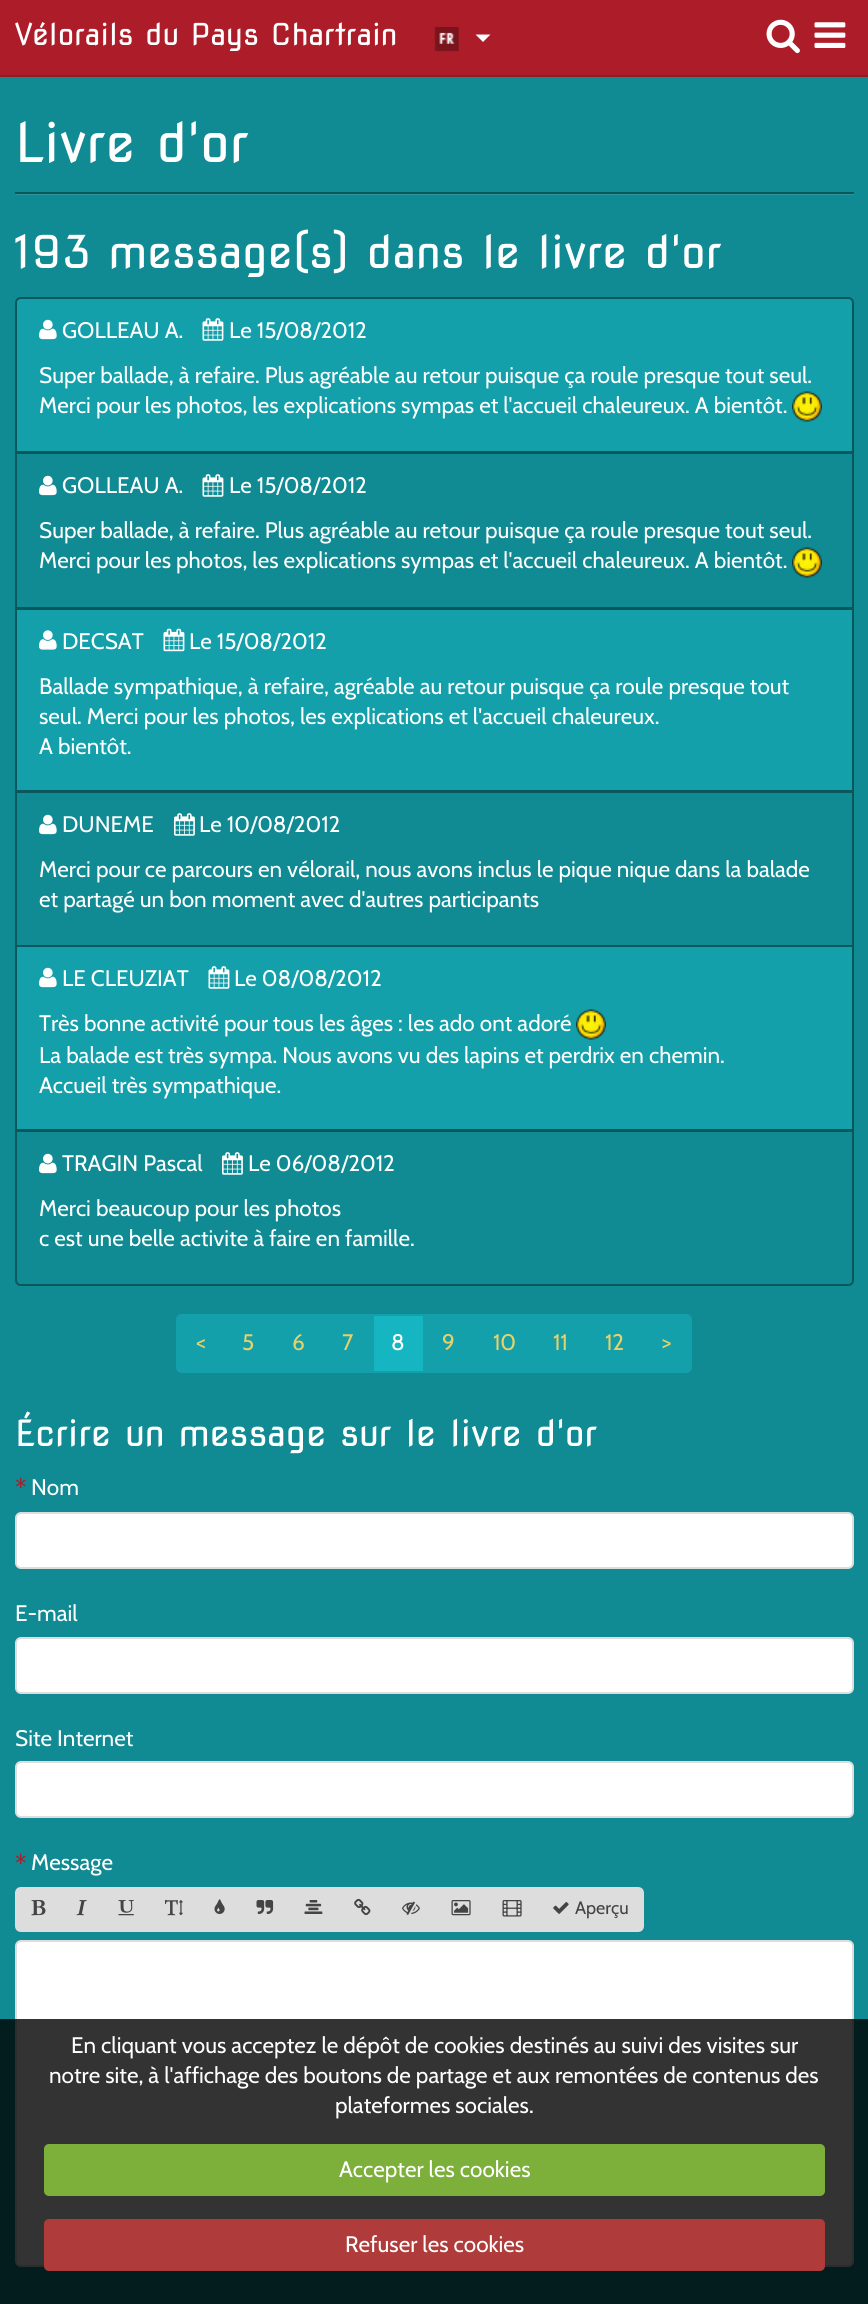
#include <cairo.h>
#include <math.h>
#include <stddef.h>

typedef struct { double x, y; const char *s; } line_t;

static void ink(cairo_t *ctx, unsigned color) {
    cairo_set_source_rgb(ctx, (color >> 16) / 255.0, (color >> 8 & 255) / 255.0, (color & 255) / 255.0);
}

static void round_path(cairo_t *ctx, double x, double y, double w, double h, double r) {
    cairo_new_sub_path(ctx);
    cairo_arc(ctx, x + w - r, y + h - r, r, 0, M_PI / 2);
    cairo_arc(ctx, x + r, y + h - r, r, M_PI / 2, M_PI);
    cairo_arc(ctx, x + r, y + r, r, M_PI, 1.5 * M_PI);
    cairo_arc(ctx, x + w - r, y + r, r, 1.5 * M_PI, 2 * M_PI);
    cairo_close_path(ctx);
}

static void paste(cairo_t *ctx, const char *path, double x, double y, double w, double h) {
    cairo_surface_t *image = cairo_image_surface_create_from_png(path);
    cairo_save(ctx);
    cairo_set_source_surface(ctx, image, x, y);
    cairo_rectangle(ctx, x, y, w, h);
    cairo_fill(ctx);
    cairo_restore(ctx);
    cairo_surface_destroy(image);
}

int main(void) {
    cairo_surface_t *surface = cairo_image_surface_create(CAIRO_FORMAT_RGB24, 868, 2304);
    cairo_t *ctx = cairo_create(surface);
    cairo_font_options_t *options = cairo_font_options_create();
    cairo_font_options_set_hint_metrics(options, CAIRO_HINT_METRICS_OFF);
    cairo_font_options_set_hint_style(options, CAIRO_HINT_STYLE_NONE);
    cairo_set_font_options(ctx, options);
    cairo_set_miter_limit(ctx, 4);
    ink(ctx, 0x108A93);
    cairo_paint(ctx);
    ink(ctx, 0xAD1D29);
    cairo_rectangle(ctx, 0, 0, 868, 75);
    cairo_fill(ctx);
    ink(ctx, 0x931923);
    cairo_rectangle(ctx, 0, 75, 868, 2);
    cairo_fill(ctx);
    cairo_select_font_face(ctx, "Nova Square", CAIRO_FONT_SLANT_NORMAL, CAIRO_FONT_WEIGHT_NORMAL);
    cairo_set_font_size(ctx, 30);
    ink(ctx, 0xFFFFFF);
    cairo_move_to(ctx, 15, 45);
    cairo_show_text(ctx, "Vélorails du Pays Chartrain");
    paste(ctx, "media/1.png", 434, 27, 25, 25);
    cairo_new_path(ctx);
    cairo_move_to(ctx, 475.5, 34.5);
    cairo_line_to(ctx, 490.5, 34.5);
    cairo_line_to(ctx, 483, 42);
    cairo_close_path(ctx);
    cairo_fill(ctx);
    paste(ctx, "media/2.png", 766, 19, 34, 35);
    paste(ctx, "media/3.png", 814, 22, 32, 26);
    ink(ctx, 0x28969E);
    cairo_new_path(ctx);
    cairo_move_to(ctx, 15, 194);
    cairo_line_to(ctx, 15, 195);
    cairo_line_to(ctx, 854, 195);
    cairo_line_to(ctx, 854, 110);
    cairo_line_to(ctx, 854, 194);
    cairo_close_path(ctx);
    cairo_fill(ctx);
    ink(ctx, 0x0A575C);
    cairo_rectangle(ctx, 15, 192, 839, 2);
    cairo_fill(ctx);
    cairo_set_font_size(ctx, 54);
    ink(ctx, 0xFFFFFF);
    cairo_move_to(ctx, 15, 162);
    cairo_show_text(ctx, "Livre d'or");
    cairo_set_font_size(ctx, 45);
    cairo_move_to(ctx, 15, 268);
    cairo_show_text(ctx, "193 message(s) dans le livre d'or");
    ink(ctx, 0x13A0AA);
    cairo_new_path(ctx);
    cairo_move_to(ctx, 21, 298);
    cairo_line_to(ctx, 848, 298);
    cairo_curve_to(ctx, 851, 298, 853, 300, 853, 303);
    cairo_line_to(ctx, 853, 452);
    cairo_line_to(ctx, 16, 452);
    cairo_line_to(ctx, 16, 303);
    cairo_curve_to(ctx, 16, 300, 18, 298, 21, 298);
    cairo_close_path(ctx);
    cairo_fill_preserve(ctx);
    ink(ctx, 0x0A575C);
    cairo_stroke(ctx);
    paste(ctx, "media/4.png", 39, 319, 18, 21);
    cairo_select_font_face(ctx, "Cabin", CAIRO_FONT_SLANT_NORMAL, CAIRO_FONT_WEIGHT_NORMAL);
    cairo_set_font_size(ctx, 22.5);
    ink(ctx, 0xFFFFFF);
    cairo_move_to(ctx, 62, 338);
    cairo_show_text(ctx, "GOLLEAU A.");
    paste(ctx, "media/5.png", 202, 318, 22, 23);
    {
        static const line_t items[] = {
            {229, 338, "Le 15/08/2012"},
            {39, 383, "Super ballade, à refaire. Plus agréable au retour puisque ça roule presque tout seul."},
            {39, 413, "Merci pour les photos, les explications sympas et l'accueil chaleureux. A bientôt."},
        };
        for (size_t i = 0; i < sizeof items / sizeof *items; i++) {
            cairo_move_to(ctx, items[i].x, items[i].y);
            cairo_show_text(ctx, items[i].s);
        }
    }
    paste(ctx, "media/6.png", 792, 391, 30, 31);
    cairo_rectangle(ctx, 16, 453, 837, 155);
    ink(ctx, 0x0A575C);
    cairo_stroke(ctx);
    paste(ctx, "media/7.png", 39, 475, 18, 21);
    ink(ctx, 0xFFFFFF);
    cairo_move_to(ctx, 62, 493);
    cairo_show_text(ctx, "GOLLEAU A.");
    paste(ctx, "media/8.png", 202, 474, 22, 23);
    {
        static const line_t items[] = {
            {229, 493, "Le 15/08/2012"},
            {39, 538, "Super ballade, à refaire. Plus agréable au retour puisque ça roule presque tout seul."},
            {39, 568, "Merci pour les photos, les explications sympas et l'accueil chaleureux. A bientôt."},
        };
        for (size_t i = 0; i < sizeof items / sizeof *items; i++) {
            cairo_move_to(ctx, items[i].x, items[i].y);
            cairo_show_text(ctx, items[i].s);
        }
    }
    paste(ctx, "media/9.png", 792, 547, 30, 31);
    ink(ctx, 0x13A0AA);
    cairo_rectangle(ctx, 16, 609, 837, 182);
    cairo_fill_preserve(ctx);
    ink(ctx, 0x0A575C);
    cairo_stroke(ctx);
    paste(ctx, "media/10.png", 39, 630, 18, 20);
    ink(ctx, 0xFFFFFF);
    cairo_move_to(ctx, 62, 649);
    cairo_show_text(ctx, "DECSAT");
    paste(ctx, "media/11.png", 163, 628, 22, 24);
    {
        static const line_t items[] = {
            {189, 649, "Le 15/08/2012"},
            {39, 694, "Ballade sympathique, à refaire, agréable au retour puisque ça roule presque tout"},
            {39, 724, "seul. Merci pour les photos, les explications et l'accueil chaleureux."},
            {39, 754, "A bientôt."},
        };
        for (size_t i = 0; i < sizeof items / sizeof *items; i++) {
            cairo_move_to(ctx, items[i].x, items[i].y);
            cairo_show_text(ctx, items[i].s);
        }
    }
    cairo_rectangle(ctx, 16, 792, 837, 154);
    ink(ctx, 0x0A575C);
    cairo_stroke(ctx);
    paste(ctx, "media/7.png", 39, 814, 18, 21);
    ink(ctx, 0xFFFFFF);
    cairo_move_to(ctx, 62, 832);
    cairo_show_text(ctx, "DUNEME");
    paste(ctx, "media/12.png", 174, 813, 21, 23);
    {
        static const line_t items[] = {
            {199, 832, "Le 10/08/2012"},
            {39, 877, "Merci pour ce parcours en vélorail, nous avons inclus le pique nique dans la balade"},
            {39, 907, "et partagé un bon moment avec d'autres participants"},
        };
        for (size_t i = 0; i < sizeof items / sizeof *items; i++) {
            cairo_move_to(ctx, items[i].x, items[i].y);
            cairo_show_text(ctx, items[i].s);
        }
    }
    ink(ctx, 0x13A0AA);
    cairo_rectangle(ctx, 16, 946, 837, 184);
    cairo_fill_preserve(ctx);
    ink(ctx, 0x0A575C);
    cairo_stroke(ctx);
    paste(ctx, "media/4.png", 39, 967, 18, 21);
    ink(ctx, 0xFFFFFF);
    cairo_move_to(ctx, 62, 986);
    cairo_show_text(ctx, "LE CLEUZIAT");
    paste(ctx, "media/5.png", 208, 966, 22, 23);
    cairo_move_to(ctx, 234, 986);
    cairo_show_text(ctx, "Le 08/08/2012");
    cairo_move_to(ctx, 39, 1031);
    cairo_show_text(ctx, "Très bonne activité pour tous les âges : les ado ont adoré");
    paste(ctx, "media/13.png", 576, 1009, 30, 31);
    cairo_move_to(ctx, 39, 1063);
    cairo_show_text(ctx, "La balade est très sympa. Nous avons vu des lapins et perdrix en chemin.");
    cairo_move_to(ctx, 39, 1093);
    cairo_show_text(ctx, "Accueil très sympathique.");
    cairo_new_path(ctx);
    cairo_move_to(ctx, 16, 1131);
    cairo_line_to(ctx, 853, 1131);
    cairo_line_to(ctx, 853, 1280);
    cairo_curve_to(ctx, 853, 1283, 851, 1285, 848, 1285);
    cairo_line_to(ctx, 21, 1285);
    cairo_curve_to(ctx, 18, 1285, 16, 1283, 16, 1280);
    cairo_close_path(ctx);
    ink(ctx, 0x0A575C);
    cairo_stroke(ctx);
    paste(ctx, "media/7.png", 39, 1153, 18, 21);
    ink(ctx, 0xFFFFFF);
    cairo_move_to(ctx, 62, 1171);
    cairo_show_text(ctx, "TRAGIN Pascal");
    paste(ctx, "media/12.png", 222, 1152, 21, 23);
    {
        static const line_t items[] = {
            {248, 1171, "Le 06/08/2012"},
            {39, 1216, "Merci beaucoup pour les photos"},
            {39, 1246, "c est une belle activite à faire en famille."},
        };
        for (size_t i = 0; i < sizeof items / sizeof *items; i++) {
            cairo_move_to(ctx, items[i].x, items[i].y);
            cairo_show_text(ctx, items[i].s);
        }
    }
    ink(ctx, 0x13A0AA);
    cairo_new_path(ctx);
    cairo_move_to(ctx, 182, 1315);
    cairo_line_to(ctx, 224, 1315);
    cairo_line_to(ctx, 224, 1372);
    cairo_line_to(ctx, 182, 1372);
    cairo_curve_to(ctx, 179, 1372, 177, 1370, 177, 1367);
    cairo_line_to(ctx, 177, 1320);
    cairo_curve_to(ctx, 177, 1317, 179, 1315, 182, 1315);
    cairo_close_path(ctx);
    cairo_fill_preserve(ctx);
    cairo_stroke(ctx);
    ink(ctx, 0xE8D169);
    cairo_move_to(ctx, 196, 1350);
    cairo_show_text(ctx, "<");
    ink(ctx, 0x13A0AA);
    cairo_rectangle(ctx, 225, 1314, 147, 59);
    cairo_fill(ctx);
    ink(ctx, 0xE8D169);
    {
        static const line_t items[] = {
            {242, 1350, "5"},
            {292, 1350, "6"},
            {342, 1350, "7"},
        };
        for (size_t i = 0; i < sizeof items / sizeof *items; i++) {
            cairo_move_to(ctx, items[i].x, items[i].y);
            cairo_show_text(ctx, items[i].s);
        }
    }
    ink(ctx, 0x15B6C1);
    cairo_rectangle(ctx, 373, 1315, 51, 57);
    cairo_fill_preserve(ctx);
    ink(ctx, 0x13A0AA);
    cairo_stroke(ctx);
    ink(ctx, 0xFFFFFF);
    cairo_move_to(ctx, 391, 1350);
    cairo_show_text(ctx, "8");
    ink(ctx, 0x13A0AA);
    cairo_rectangle(ctx, 425, 1314, 217, 59);
    cairo_fill(ctx);
    ink(ctx, 0xE8D169);
    {
        static const line_t items[] = {
            {442, 1350, "9"},
            {493, 1350, "10"},
            {553, 1350, "11"},
            {605, 1350, "12"},
        };
        for (size_t i = 0; i < sizeof items / sizeof *items; i++) {
            cairo_move_to(ctx, items[i].x, items[i].y);
            cairo_show_text(ctx, items[i].s);
        }
    }
    ink(ctx, 0x13A0AA);
    cairo_new_path(ctx);
    cairo_move_to(ctx, 643, 1315);
    cairo_line_to(ctx, 686, 1315);
    cairo_curve_to(ctx, 689, 1315, 691, 1317, 691, 1320);
    cairo_line_to(ctx, 691, 1367);
    cairo_curve_to(ctx, 691, 1370, 689, 1372, 686, 1372);
    cairo_line_to(ctx, 643, 1372);
    cairo_close_path(ctx);
    cairo_fill_preserve(ctx);
    cairo_stroke(ctx);
    ink(ctx, 0xE8D169);
    cairo_move_to(ctx, 662, 1350);
    cairo_show_text(ctx, ">");
    cairo_select_font_face(ctx, "Nova Square", CAIRO_FONT_SLANT_NORMAL, CAIRO_FONT_WEIGHT_NORMAL);
    cairo_set_font_size(ctx, 36);
    ink(ctx, 0xFFFFFF);
    cairo_move_to(ctx, 15, 1446);
    cairo_show_text(ctx, "Écrire un message sur le livre d'or");
    cairo_select_font_face(ctx, "Cabin", CAIRO_FONT_SLANT_NORMAL, CAIRO_FONT_WEIGHT_NORMAL);
    cairo_set_font_size(ctx, 27);
    ink(ctx, 0xAD1D29);
    cairo_move_to(ctx, 15, 1498);
    cairo_show_text(ctx, "*");
    cairo_set_font_size(ctx, 22.5);
    ink(ctx, 0xFFFFFF);
    cairo_move_to(ctx, 31, 1495);
    cairo_show_text(ctx, "Nom");
    round_path(ctx, 16, 1513, 837, 55, 5);
    cairo_fill_preserve(ctx);
    ink(ctx, 0xDDDDDD);
    cairo_stroke(ctx);
    ink(ctx, 0xFFFFFF);
    cairo_move_to(ctx, 15, 1621);
    cairo_show_text(ctx, "E-mail");
    round_path(ctx, 16, 1638, 837, 55, 5);
    cairo_fill_preserve(ctx);
    ink(ctx, 0xDDDDDD);
    cairo_stroke(ctx);
    ink(ctx, 0xFFFFFF);
    cairo_move_to(ctx, 15, 1746);
    cairo_show_text(ctx, "Site Internet");
    round_path(ctx, 16, 1762, 837, 55, 5);
    cairo_fill_preserve(ctx);
    ink(ctx, 0xDDDDDD);
    cairo_stroke(ctx);
    cairo_set_font_size(ctx, 27);
    ink(ctx, 0xAD1D29);
    cairo_move_to(ctx, 15, 1874);
    cairo_show_text(ctx, "*");
    cairo_set_font_size(ctx, 22.5);
    ink(ctx, 0xFFFFFF);
    cairo_move_to(ctx, 31, 1870);
    cairo_show_text(ctx, "Message");
    ink(ctx, 0xDDDDDD);
    cairo_new_path(ctx);
    cairo_move_to(ctx, 21, 1888);
    cairo_line_to(ctx, 61, 1888);
    cairo_line_to(ctx, 61, 1931);
    cairo_line_to(ctx, 21, 1931);
    cairo_curve_to(ctx, 18, 1931, 16, 1929, 16, 1926);
    cairo_line_to(ctx, 16, 1893);
    cairo_curve_to(ctx, 16, 1890, 18, 1888, 21, 1888);
    cairo_close_path(ctx);
    cairo_fill_preserve(ctx);
    cairo_stroke(ctx);
    paste(ctx, "media/14.png", 31, 1900, 15, 16);
    cairo_rectangle(ctx, 62, 1887, 474, 45);
    cairo_fill(ctx);
    paste(ctx, "media/15.png", 76, 1900, 11, 16);
    paste(ctx, "media/16.png", 118, 1900, 16, 16);
    paste(ctx, "media/17.png", 165, 1900, 18, 16);
    paste(ctx, "media/18.png", 214, 1899, 11, 15);
    paste(ctx, "media/19.png", 256, 1900, 18, 14);
    paste(ctx, "media/20.png", 304, 1900, 19, 14);
    paste(ctx, "media/21.png", 354, 1898, 17, 18);
    paste(ctx, "media/22.png", 402, 1901, 18, 14);
    paste(ctx, "media/23.png", 451, 1900, 20, 16);
    paste(ctx, "media/24.png", 502, 1900, 20, 17);
    cairo_new_path(ctx);
    cairo_move_to(ctx, 537, 1888);
    cairo_line_to(ctx, 638, 1888);
    cairo_curve_to(ctx, 641, 1888, 643, 1890, 643, 1893);
    cairo_line_to(ctx, 643, 1926);
    cairo_curve_to(ctx, 643, 1929, 641, 1931, 638, 1931);
    cairo_line_to(ctx, 537, 1931);
    cairo_close_path(ctx);
    cairo_fill_preserve(ctx);
    cairo_stroke(ctx);
    paste(ctx, "media/25.png", 553, 1902, 16, 12);
    cairo_set_font_size(ctx, 18);
    ink(ctx, 0x444444);
    cairo_move_to(ctx, 575, 1914);
    cairo_show_text(ctx, "Aperçu");
    ink(ctx, 0xFFFFFF);
    round_path(ctx, 16, 1941, 837, 325, 5);
    cairo_fill_preserve(ctx);
    ink(ctx, 0xDDDDDD);
    cairo_stroke(ctx);
    cairo_set_source_rgba(ctx, 0, 0, 0, 0.8);
    cairo_rectangle(ctx, 0, 2019, 868, 285);
    cairo_fill(ctx);
    cairo_set_font_size(ctx, 22.5);
    ink(ctx, 0xFFFFFF);
    {
        static const line_t items[] = {
            {71, 2053, "En cliquant vous acceptez le dépôt de cookies destinés au suivi des visites sur"},
            {49, 2083, "notre site, à l'affichage des boutons de partage et aux remontées de contenus des"},
            {335, 2113, "plateformes sociales."},
        };
        for (size_t i = 0; i < sizeof items / sizeof *items; i++) {
            cairo_move_to(ctx, items[i].x, items[i].y);
            cairo_show_text(ctx, items[i].s);
        }
    }
    ink(ctx, 0x7DAF3B);
    round_path(ctx, 44, 2144, 781, 52, 5);
    cairo_fill(ctx);
    ink(ctx, 0xFFFFFF);
    cairo_move_to(ctx, 339, 2177);
    cairo_show_text(ctx, "Accepter les cookies");
    ink(ctx, 0xAF3B3B);
    round_path(ctx, 44, 2219, 781, 52, 5);
    cairo_fill(ctx);
    ink(ctx, 0xFFFFFF);
    cairo_move_to(ctx, 345, 2252);
    cairo_show_text(ctx, "Refuser les cookies");
    cairo_surface_write_to_png(surface, "image.png");
    cairo_font_options_destroy(options);
    cairo_destroy(ctx);
    cairo_surface_destroy(surface);
    return 0;
}
